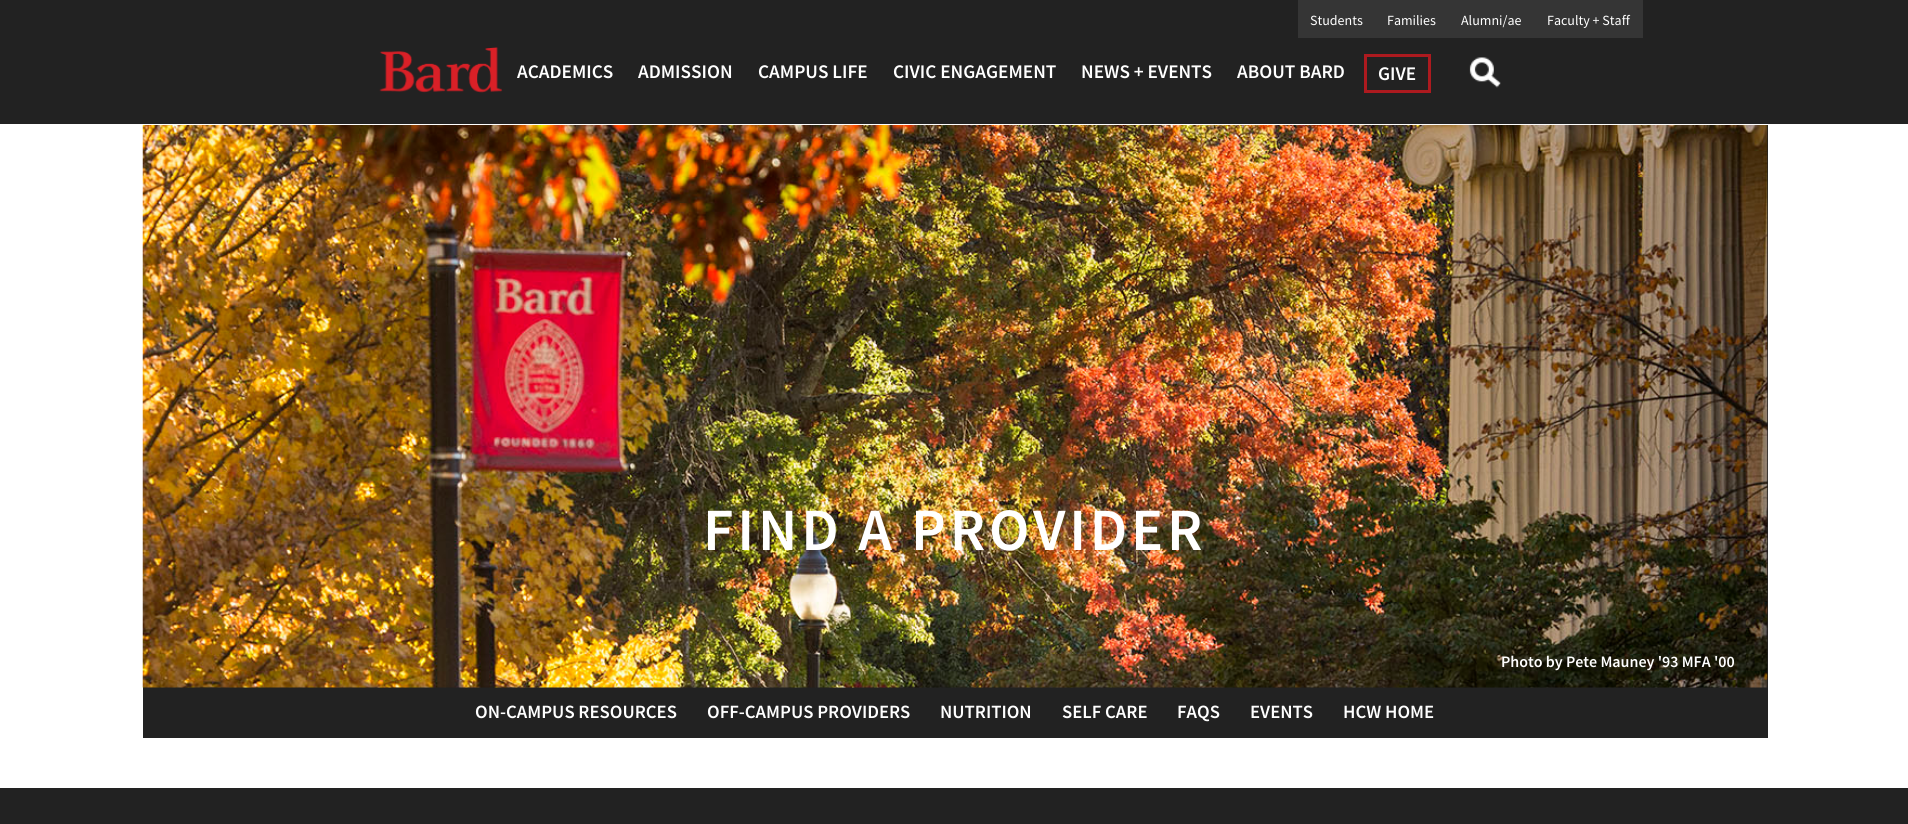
#include <cairo.h>
#include <math.h>
#include <stddef.h>

typedef struct { double x, y; const char *s; } line_t;

static void ink(cairo_t *ctx, unsigned color) {
    cairo_set_source_rgb(ctx, (color >> 16) / 255.0, (color >> 8 & 255) / 255.0, (color & 255) / 255.0);
}

static void write_spaced(cairo_t *ctx, double x, double y, const char *s, double letter, double word) {
    cairo_move_to(ctx, x, y);
    while (*s) {
        char ch[5] = {0};
        int n = 0;
        do ch[n++] = *s++; while ((*s & 0xC0) == 0x80);
        cairo_show_text(ctx, ch);
        cairo_rel_move_to(ctx, letter + word * (*ch == ' '), 0);
    }
}

static void paste(cairo_t *ctx, const char *path, double x, double y, double w, double h) {
    cairo_surface_t *image = cairo_image_surface_create_from_png(path);
    cairo_save(ctx);
    cairo_set_source_surface(ctx, image, x, y);
    cairo_rectangle(ctx, x, y, w, h);
    cairo_fill(ctx);
    cairo_restore(ctx);
    cairo_surface_destroy(image);
}

int main(void) {
    cairo_surface_t *surface = cairo_image_surface_create(CAIRO_FORMAT_RGB24, 1908, 824);
    cairo_t *ctx = cairo_create(surface);
    cairo_font_options_t *options = cairo_font_options_create();
    cairo_font_options_set_hint_metrics(options, CAIRO_HINT_METRICS_OFF);
    cairo_font_options_set_hint_style(options, CAIRO_HINT_STYLE_NONE);
    cairo_set_font_options(ctx, options);
    cairo_set_miter_limit(ctx, 4);
    ink(ctx, 0xFFFFFF);
    cairo_paint(ctx);
    ink(ctx, 0x222222);
    cairo_rectangle(ctx, 0, 0, 1908, 124);
    cairo_fill(ctx);
    ink(ctx, 0x353535);
    cairo_rectangle(ctx, 1298, 0, 345, 38);
    cairo_fill(ctx);
    cairo_select_font_face(ctx, "Source Sans Pro", CAIRO_FONT_SLANT_NORMAL, CAIRO_FONT_WEIGHT_NORMAL);
    cairo_set_font_size(ctx, 14);
    ink(ctx, 0xFFFFFF);
    {
        static const line_t items[] = {
            {1310, 25, "Students"},
            {1387, 25, "Families"},
            {1461, 25, "Alumni/ae"},
            {1547, 25, "Faculty + Staff"},
        };
        for (size_t i = 0; i < sizeof items / sizeof *items; i++) {
            cairo_move_to(ctx, items[i].x, items[i].y);
            cairo_show_text(ctx, items[i].s);
        }
    }
    paste(ctx, "media/1.png", 379, 47, 124, 46);
    cairo_select_font_face(ctx, "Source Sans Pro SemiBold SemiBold", CAIRO_FONT_SLANT_NORMAL, CAIRO_FONT_WEIGHT_NORMAL);
    cairo_set_font_size(ctx, 19.25);
    {
        static const line_t items[] = {
            {517, 78, "ACADEMICS"},
            {638, 78, "ADMISSION"},
            {758, 78, "CAMPUS LIFE"},
            {893, 78, "CIVIC ENGAGEMENT"},
            {1081, 78, "NEWS + EVENTS"},
            {1237, 78, "ABOUT BARD"},
        };
        for (size_t i = 0; i < sizeof items / sizeof *items; i++) {
            cairo_move_to(ctx, items[i].x, items[i].y);
            cairo_show_text(ctx, items[i].s);
        }
    }
    cairo_rectangle(ctx, 1365.5, 55.5, 64, 36);
    ink(ctx, 0xAD1A1F);
    cairo_set_line_width(ctx, 3);
    cairo_stroke(ctx);
    ink(ctx, 0xFFFFFF);
    cairo_move_to(ctx, 1378, 80);
    cairo_show_text(ctx, "GIVE");
    paste(ctx, "media/2.png", 1469, 57, 32, 31);
    ink(ctx, 0x222222);
    cairo_rectangle(ctx, 143, 125, 1625, 613);
    cairo_fill(ctx);
    paste(ctx, "media/3.png", 142, 125, 1626, 563);
    cairo_set_font_size(ctx, 60);
    ink(ctx, 0xFFFFFF);
    write_spaced(ctx, 703, 550, "FIND A PROVIDER", 3.75, 0);
    cairo_set_font_size(ctx, 16);
    cairo_move_to(ctx, 1501, 667);
    cairo_show_text(ctx, "Photo by Pete Mauney '93 MFA '00");
    cairo_set_font_size(ctx, 18.75);
    {
        static const line_t items[] = {
            {475, 718, "ON-CAMPUS RESOURCES"},
            {707, 718, "OFF-CAMPUS PROVIDERS"},
            {940, 718, "NUTRITION"},
            {1062, 718, "SELF CARE"},
            {1177, 718, "FAQS"},
            {1250, 718, "EVENTS"},
            {1343, 718, "HCW HOME"},
        };
        for (size_t i = 0; i < sizeof items / sizeof *items; i++) {
            cairo_move_to(ctx, items[i].x, items[i].y);
            cairo_show_text(ctx, items[i].s);
        }
    }
    ink(ctx, 0x222222);
    cairo_rectangle(ctx, 0, 788, 1908, 36);
    cairo_fill(ctx);
    cairo_surface_write_to_png(surface, "image.png");
    cairo_font_options_destroy(options);
    cairo_destroy(ctx);
    cairo_surface_destroy(surface);
    return 0;
}
